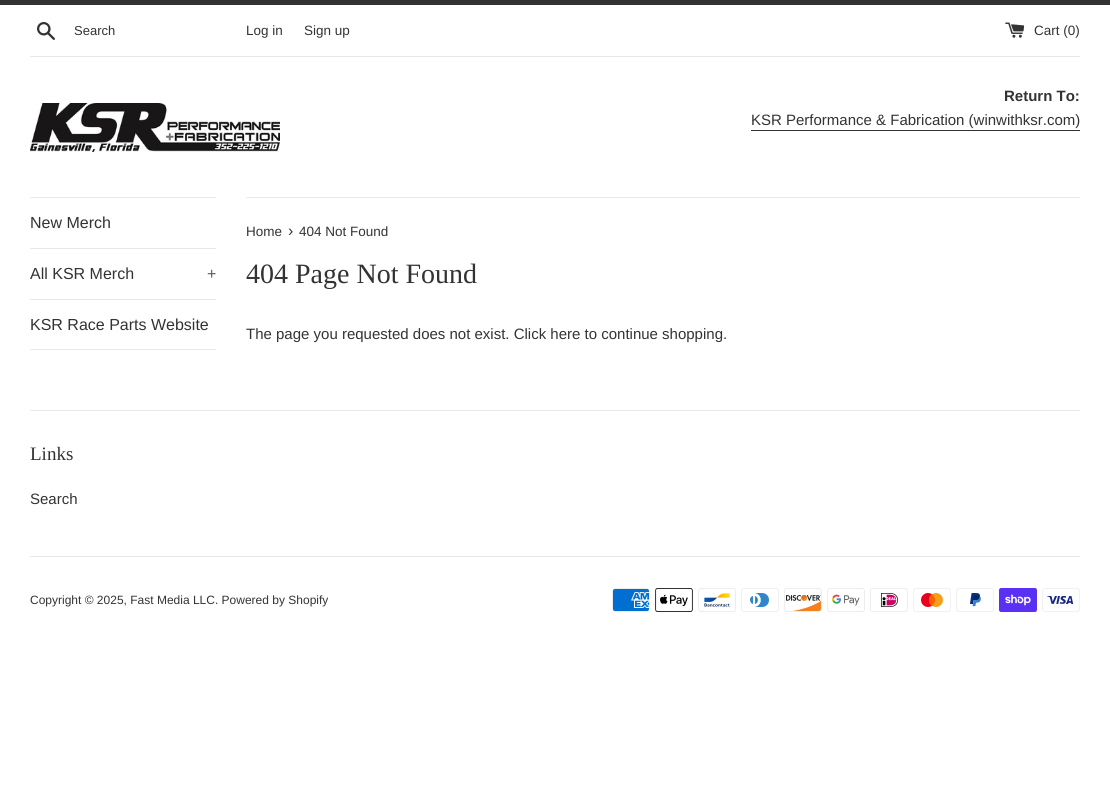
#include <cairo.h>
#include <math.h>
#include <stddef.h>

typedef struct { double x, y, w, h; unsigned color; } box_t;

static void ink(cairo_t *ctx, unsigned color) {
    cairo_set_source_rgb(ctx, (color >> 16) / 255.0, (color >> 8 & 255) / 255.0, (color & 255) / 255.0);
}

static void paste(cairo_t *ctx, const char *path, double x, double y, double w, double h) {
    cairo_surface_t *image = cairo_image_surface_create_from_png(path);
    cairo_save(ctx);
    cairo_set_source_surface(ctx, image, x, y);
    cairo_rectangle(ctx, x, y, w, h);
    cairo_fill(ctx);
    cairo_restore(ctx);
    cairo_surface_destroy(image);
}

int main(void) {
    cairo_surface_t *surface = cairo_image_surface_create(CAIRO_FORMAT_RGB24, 1110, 806);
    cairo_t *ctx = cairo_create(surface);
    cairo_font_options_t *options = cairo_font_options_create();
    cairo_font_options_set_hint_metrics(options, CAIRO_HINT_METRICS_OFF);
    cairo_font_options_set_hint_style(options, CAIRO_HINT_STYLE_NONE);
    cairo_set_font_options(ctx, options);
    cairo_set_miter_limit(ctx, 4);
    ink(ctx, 0xFFFFFF);
    cairo_paint(ctx);
    ink(ctx, 0x333333);
    cairo_rectangle(ctx, 0, 0, 1110, 5);
    cairo_fill(ctx);
    paste(ctx, "media/1.png", 37, 22, 18, 18);
    cairo_select_font_face(ctx, "Liberation Sans", CAIRO_FONT_SLANT_NORMAL, CAIRO_FONT_WEIGHT_NORMAL);
    cairo_set_font_size(ctx, 13);
    cairo_move_to(ctx, 74, 35);
    cairo_show_text(ctx, "Search");
    cairo_set_font_size(ctx, 13.5);
    cairo_move_to(ctx, 246, 35);
    cairo_show_text(ctx, "Log in");
    cairo_move_to(ctx, 304, 35);
    cairo_show_text(ctx, "Sign up");
    paste(ctx, "media/2.png", 1005, 22, 20, 16);
    cairo_move_to(ctx, 1034, 35);
    cairo_show_text(ctx, "Cart (0)");
    ink(ctx, 0xE8E8E8);
    cairo_rectangle(ctx, 30, 56, 1050, 1);
    cairo_fill(ctx);
    paste(ctx, "media/3.png", 30, 103, 250, 49);
    cairo_select_font_face(ctx, "Liberation Sans", CAIRO_FONT_SLANT_NORMAL, CAIRO_FONT_WEIGHT_BOLD);
    cairo_set_font_size(ctx, 15);
    ink(ctx, 0x333333);
    cairo_move_to(ctx, 1004, 101);
    cairo_show_text(ctx, "Return To:");
    cairo_select_font_face(ctx, "Liberation Sans", CAIRO_FONT_SLANT_NORMAL, CAIRO_FONT_WEIGHT_NORMAL);
    cairo_move_to(ctx, 751, 125);
    cairo_show_text(ctx, "KSR Performance & Fabrication (winwithksr.com)");
    {
        static const box_t items[] = {
            {751, 130, 329, 1, 0x333333},
            {30, 197, 186, 1, 0xE8E8E8},
            {30, 248, 186, 1, 0xE8E8E8},
        };
        for (size_t i = 0; i < sizeof items / sizeof *items; i++) {
            ink(ctx, items[i].color);
            cairo_rectangle(ctx, items[i].x, items[i].y, items[i].w, items[i].h);
            cairo_fill(ctx);
        }
    }
    cairo_set_font_size(ctx, 16);
    ink(ctx, 0x333333);
    cairo_move_to(ctx, 30, 228);
    cairo_show_text(ctx, "New Merch");
    ink(ctx, 0xE8E8E8);
    cairo_rectangle(ctx, 30, 299, 186, 1);
    cairo_fill(ctx);
    ink(ctx, 0x333333);
    cairo_move_to(ctx, 30, 279);
    cairo_show_text(ctx, "All KSR Merch");
    ink(ctx, 0x5C5C5C);
    cairo_move_to(ctx, 207, 279);
    cairo_show_text(ctx, "+");
    ink(ctx, 0xE8E8E8);
    cairo_rectangle(ctx, 30, 349, 186, 1);
    cairo_fill(ctx);
    ink(ctx, 0x333333);
    cairo_move_to(ctx, 30, 330);
    cairo_show_text(ctx, "KSR Race Parts Website");
    ink(ctx, 0xE8E8E8);
    cairo_rectangle(ctx, 246, 197, 834, 1);
    cairo_fill(ctx);
    cairo_set_font_size(ctx, 13.5);
    ink(ctx, 0x333333);
    cairo_move_to(ctx, 246, 236);
    cairo_show_text(ctx, "Home");
    cairo_set_font_size(ctx, 16);
    cairo_move_to(ctx, 288, 236);
    cairo_show_text(ctx, "›");
    cairo_set_font_size(ctx, 13.5);
    cairo_move_to(ctx, 299, 236);
    cairo_show_text(ctx, "404 Not Found");
    cairo_select_font_face(ctx, "Liberation Serif", CAIRO_FONT_SLANT_NORMAL, CAIRO_FONT_WEIGHT_NORMAL);
    cairo_set_font_size(ctx, 28);
    cairo_move_to(ctx, 246, 283);
    cairo_show_text(ctx, "404 Page Not Found");
    cairo_select_font_face(ctx, "Liberation Sans", CAIRO_FONT_SLANT_NORMAL, CAIRO_FONT_WEIGHT_NORMAL);
    cairo_set_font_size(ctx, 15);
    cairo_move_to(ctx, 246, 339);
    cairo_show_text(ctx, "The page you requested does not exist. Click here to continue shopping.");
    ink(ctx, 0xE8E8E8);
    cairo_rectangle(ctx, 30, 410, 1050, 1);
    cairo_fill(ctx);
    cairo_select_font_face(ctx, "Liberation Serif", CAIRO_FONT_SLANT_NORMAL, CAIRO_FONT_WEIGHT_NORMAL);
    cairo_set_font_size(ctx, 19);
    ink(ctx, 0x333333);
    cairo_move_to(ctx, 30, 460);
    cairo_show_text(ctx, "Links");
    cairo_select_font_face(ctx, "Liberation Sans", CAIRO_FONT_SLANT_NORMAL, CAIRO_FONT_WEIGHT_NORMAL);
    cairo_set_font_size(ctx, 15);
    cairo_move_to(ctx, 30, 504);
    cairo_show_text(ctx, "Search");
    ink(ctx, 0xE8E8E8);
    cairo_rectangle(ctx, 30, 556, 1050, 1);
    cairo_fill(ctx);
    cairo_set_font_size(ctx, 12);
    ink(ctx, 0x333333);
    cairo_move_to(ctx, 30, 604);
    cairo_show_text(ctx, "Copyright © 2025, Fast Media LLC. Powered by Shopify");
    paste(ctx, "media/4.png", 612, 588, 38, 24);
    paste(ctx, "media/5.png", 655, 588, 38, 24);
    paste(ctx, "media/6.png", 698, 588, 38, 24);
    paste(ctx, "media/7.png", 741, 588, 38, 24);
    paste(ctx, "media/8.png", 784, 588, 38, 24);
    paste(ctx, "media/9.png", 827, 588, 38, 24);
    paste(ctx, "media/10.png", 870, 588, 38, 24);
    paste(ctx, "media/11.png", 913, 588, 38, 24);
    paste(ctx, "media/12.png", 956, 588, 38, 24);
    paste(ctx, "media/13.png", 999, 588, 38, 24);
    paste(ctx, "media/14.png", 1042, 588, 38, 24);
    cairo_surface_write_to_png(surface, "image.png");
    cairo_font_options_destroy(options);
    cairo_destroy(ctx);
    cairo_surface_destroy(surface);
    return 0;
}
